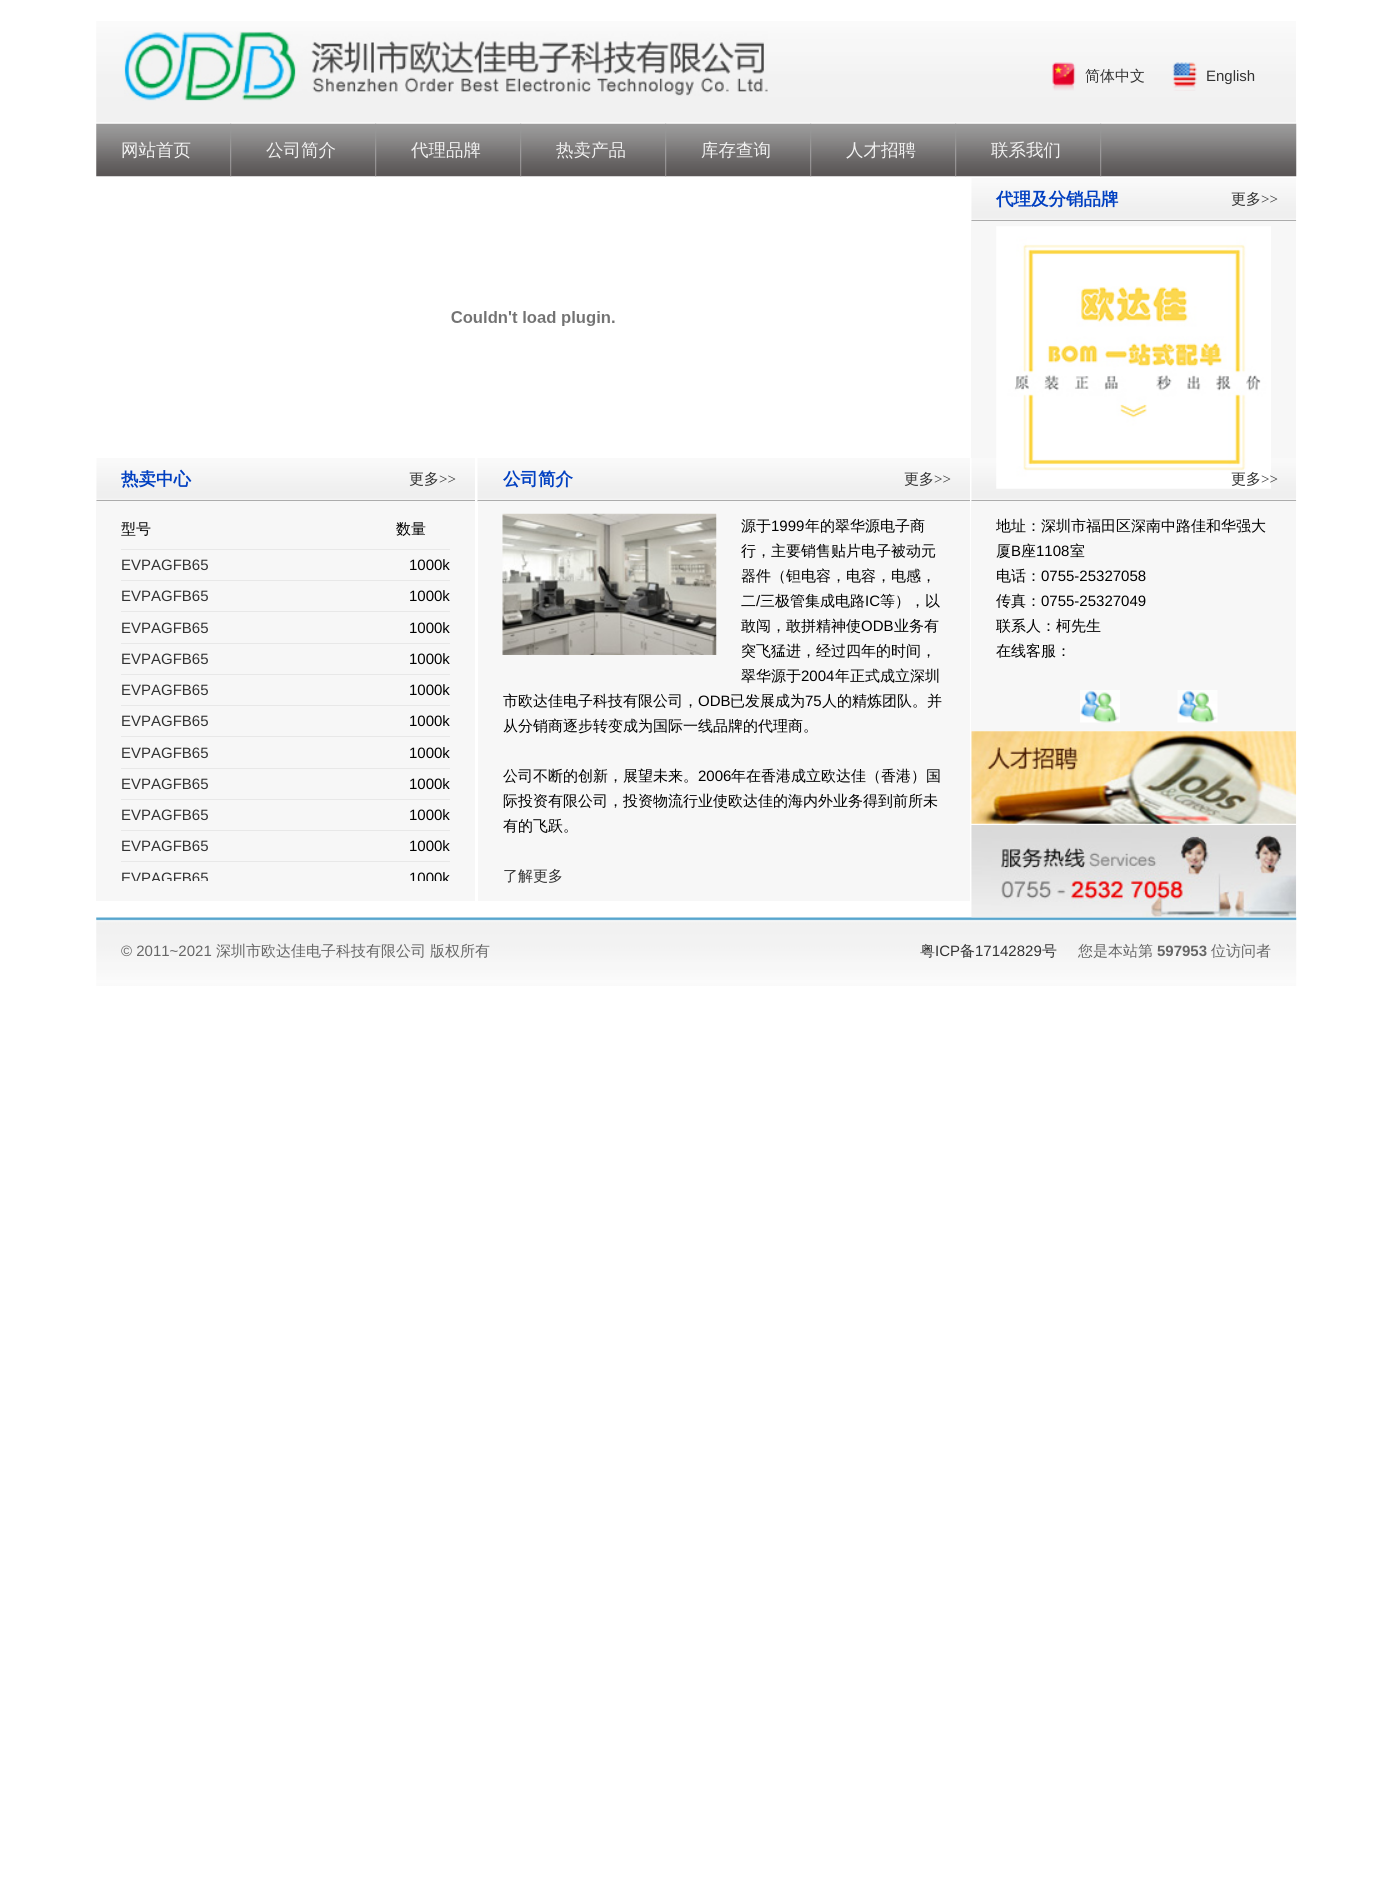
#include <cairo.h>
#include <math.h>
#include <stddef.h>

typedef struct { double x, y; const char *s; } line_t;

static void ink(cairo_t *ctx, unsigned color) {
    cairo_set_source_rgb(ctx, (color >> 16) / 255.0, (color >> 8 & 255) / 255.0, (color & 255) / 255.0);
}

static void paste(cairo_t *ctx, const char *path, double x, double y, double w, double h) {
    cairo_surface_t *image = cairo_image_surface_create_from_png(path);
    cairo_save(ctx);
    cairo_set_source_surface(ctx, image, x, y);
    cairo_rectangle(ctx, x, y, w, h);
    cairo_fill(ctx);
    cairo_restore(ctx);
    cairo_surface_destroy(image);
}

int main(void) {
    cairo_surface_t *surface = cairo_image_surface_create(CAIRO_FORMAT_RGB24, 1392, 1887);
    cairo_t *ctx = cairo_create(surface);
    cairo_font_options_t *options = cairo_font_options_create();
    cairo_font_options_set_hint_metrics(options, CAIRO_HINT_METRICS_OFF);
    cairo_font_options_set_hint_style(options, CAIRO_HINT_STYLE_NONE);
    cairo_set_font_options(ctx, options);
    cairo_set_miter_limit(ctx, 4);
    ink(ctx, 0xFFFFFF);
    cairo_paint(ctx);
    paste(ctx, "media/1.png", 96, 21, 1200, 102);
    paste(ctx, "media/2.png", 124, 31, 644, 70);
    paste(ctx, "media/3.png", 1052, 62, 24, 29);
    cairo_select_font_face(ctx, "WenQuanYi Zen Hei Medium", CAIRO_FONT_SLANT_NORMAL, CAIRO_FONT_WEIGHT_NORMAL);
    cairo_set_font_size(ctx, 15);
    ink(ctx, 0x333333);
    cairo_move_to(ctx, 1085, 81);
    cairo_show_text(ctx, "简体中文");
    paste(ctx, "media/4.png", 1172, 62, 25, 29);
    cairo_select_font_face(ctx, "Liberation Sans", CAIRO_FONT_SLANT_NORMAL, CAIRO_FONT_WEIGHT_NORMAL);
    cairo_move_to(ctx, 1206, 81);
    cairo_show_text(ctx, "English");
    paste(ctx, "media/5.png", 96, 123, 1201, 54);
    paste(ctx, "media/6.png", 230, 123, 2, 54);
    cairo_select_font_face(ctx, "WenQuanYi Zen Hei Medium", CAIRO_FONT_SLANT_NORMAL, CAIRO_FONT_WEIGHT_NORMAL);
    cairo_set_font_size(ctx, 17.5);
    ink(ctx, 0xF1F1F1);
    cairo_move_to(ctx, 121, 156);
    cairo_show_text(ctx, "网站首页");
    paste(ctx, "media/6.png", 375, 123, 2, 54);
    cairo_move_to(ctx, 266, 156);
    cairo_show_text(ctx, "公司简介");
    paste(ctx, "media/6.png", 520, 123, 2, 54);
    cairo_move_to(ctx, 411, 156);
    cairo_show_text(ctx, "代理品牌");
    paste(ctx, "media/6.png", 665, 123, 2, 54);
    cairo_move_to(ctx, 556, 156);
    cairo_show_text(ctx, "热卖产品");
    paste(ctx, "media/6.png", 810, 123, 2, 54);
    cairo_move_to(ctx, 701, 156);
    cairo_show_text(ctx, "库存查询");
    paste(ctx, "media/6.png", 955, 123, 2, 54);
    cairo_move_to(ctx, 846, 156);
    cairo_show_text(ctx, "人才招聘");
    paste(ctx, "media/6.png", 1100, 123, 2, 54);
    cairo_move_to(ctx, 991, 156);
    cairo_show_text(ctx, "联系我们");
    paste(ctx, "media/7.png", 451, 311, 164, 15);
    paste(ctx, "media/8.png", 96, 458, 379, 43);
    cairo_select_font_face(ctx, "WenQuanYi Zen Hei", CAIRO_FONT_SLANT_NORMAL, CAIRO_FONT_WEIGHT_BOLD);
    ink(ctx, 0x0140C1);
    cairo_move_to(ctx, 121, 485);
    cairo_show_text(ctx, "热卖中心");
    cairo_select_font_face(ctx, "WenQuanYi Zen Hei Medium", CAIRO_FONT_SLANT_NORMAL, CAIRO_FONT_WEIGHT_NORMAL);
    cairo_set_font_size(ctx, 15);
    ink(ctx, 0x333333);
    cairo_move_to(ctx, 409, 484);
    cairo_show_text(ctx, "更多");
    cairo_select_font_face(ctx, "Liberation Serif", CAIRO_FONT_SLANT_NORMAL, CAIRO_FONT_WEIGHT_NORMAL);
    cairo_move_to(ctx, 439, 484);
    cairo_show_text(ctx, ">>");
    ink(ctx, 0xF7F7F7);
    cairo_rectangle(ctx, 96, 501, 379, 400);
    cairo_fill(ctx);
    cairo_select_font_face(ctx, "WenQuanYi Zen Hei Medium", CAIRO_FONT_SLANT_NORMAL, CAIRO_FONT_WEIGHT_NORMAL);
    ink(ctx, 0x000000);
    cairo_move_to(ctx, 121, 534);
    cairo_show_text(ctx, "型号");
    cairo_move_to(ctx, 396, 534);
    cairo_show_text(ctx, "数量");
    ink(ctx, 0xE8E8E8);
    cairo_rectangle(ctx, 121, 549, 329, 1);
    cairo_fill(ctx);
    cairo_rectangle(ctx, 121, 580, 329, 1);
    cairo_fill(ctx);
    cairo_select_font_face(ctx, "Liberation Sans", CAIRO_FONT_SLANT_NORMAL, CAIRO_FONT_WEIGHT_NORMAL);
    ink(ctx, 0x333333);
    cairo_move_to(ctx, 121, 570);
    cairo_show_text(ctx, "EVPAGFB65");
    ink(ctx, 0x000000);
    cairo_move_to(ctx, 409, 570);
    cairo_show_text(ctx, "1000k");
    ink(ctx, 0xE8E8E8);
    cairo_rectangle(ctx, 121, 611, 329, 1);
    cairo_fill(ctx);
    ink(ctx, 0x333333);
    cairo_move_to(ctx, 121, 601);
    cairo_show_text(ctx, "EVPAGFB65");
    ink(ctx, 0x000000);
    cairo_move_to(ctx, 409, 601);
    cairo_show_text(ctx, "1000k");
    ink(ctx, 0xE8E8E8);
    cairo_rectangle(ctx, 121, 643, 329, 1);
    cairo_fill(ctx);
    ink(ctx, 0x333333);
    cairo_move_to(ctx, 121, 633);
    cairo_show_text(ctx, "EVPAGFB65");
    ink(ctx, 0x000000);
    cairo_move_to(ctx, 409, 633);
    cairo_show_text(ctx, "1000k");
    ink(ctx, 0xE8E8E8);
    cairo_rectangle(ctx, 121, 674, 329, 1);
    cairo_fill(ctx);
    ink(ctx, 0x333333);
    cairo_move_to(ctx, 121, 664);
    cairo_show_text(ctx, "EVPAGFB65");
    ink(ctx, 0x000000);
    cairo_move_to(ctx, 409, 664);
    cairo_show_text(ctx, "1000k");
    ink(ctx, 0xE8E8E8);
    cairo_rectangle(ctx, 121, 705, 329, 1);
    cairo_fill(ctx);
    ink(ctx, 0x333333);
    cairo_move_to(ctx, 121, 695);
    cairo_show_text(ctx, "EVPAGFB65");
    ink(ctx, 0x000000);
    cairo_move_to(ctx, 409, 695);
    cairo_show_text(ctx, "1000k");
    ink(ctx, 0xE8E8E8);
    cairo_rectangle(ctx, 121, 736, 329, 1);
    cairo_fill(ctx);
    ink(ctx, 0x333333);
    cairo_move_to(ctx, 121, 726);
    cairo_show_text(ctx, "EVPAGFB65");
    ink(ctx, 0x000000);
    cairo_move_to(ctx, 409, 726);
    cairo_show_text(ctx, "1000k");
    ink(ctx, 0xE8E8E8);
    cairo_rectangle(ctx, 121, 768, 329, 1);
    cairo_fill(ctx);
    ink(ctx, 0x333333);
    cairo_move_to(ctx, 121, 758);
    cairo_show_text(ctx, "EVPAGFB65");
    ink(ctx, 0x000000);
    cairo_move_to(ctx, 409, 758);
    cairo_show_text(ctx, "1000k");
    ink(ctx, 0xE8E8E8);
    cairo_rectangle(ctx, 121, 799, 329, 1);
    cairo_fill(ctx);
    ink(ctx, 0x333333);
    cairo_move_to(ctx, 121, 789);
    cairo_show_text(ctx, "EVPAGFB65");
    ink(ctx, 0x000000);
    cairo_move_to(ctx, 409, 789);
    cairo_show_text(ctx, "1000k");
    ink(ctx, 0xE8E8E8);
    cairo_rectangle(ctx, 121, 830, 329, 1);
    cairo_fill(ctx);
    ink(ctx, 0x333333);
    cairo_move_to(ctx, 121, 820);
    cairo_show_text(ctx, "EVPAGFB65");
    ink(ctx, 0x000000);
    cairo_move_to(ctx, 409, 820);
    cairo_show_text(ctx, "1000k");
    ink(ctx, 0xE8E8E8);
    cairo_rectangle(ctx, 121, 861, 329, 1);
    cairo_fill(ctx);
    ink(ctx, 0x333333);
    cairo_move_to(ctx, 121, 851);
    cairo_show_text(ctx, "EVPAGFB65");
    ink(ctx, 0x000000);
    cairo_move_to(ctx, 409, 851);
    cairo_show_text(ctx, "1000k");
    cairo_save(ctx);
    cairo_rectangle(ctx, 96, 544, 379, 337);
    cairo_clip(ctx);
    ink(ctx, 0x333333);
    cairo_move_to(ctx, 121, 883);
    cairo_show_text(ctx, "EVPAGFB65");
    ink(ctx, 0x000000);
    cairo_move_to(ctx, 409, 883);
    cairo_show_text(ctx, "1000k");
    cairo_restore(ctx);
    paste(ctx, "media/9.png", 477, 458, 493, 44);
    cairo_select_font_face(ctx, "WenQuanYi Zen Hei", CAIRO_FONT_SLANT_NORMAL, CAIRO_FONT_WEIGHT_BOLD);
    cairo_set_font_size(ctx, 17.5);
    ink(ctx, 0x0140C1);
    cairo_move_to(ctx, 503, 485);
    cairo_show_text(ctx, "公司简介");
    cairo_select_font_face(ctx, "WenQuanYi Zen Hei Medium", CAIRO_FONT_SLANT_NORMAL, CAIRO_FONT_WEIGHT_NORMAL);
    cairo_set_font_size(ctx, 15);
    ink(ctx, 0x333333);
    cairo_move_to(ctx, 904, 484);
    cairo_show_text(ctx, "更多");
    cairo_select_font_face(ctx, "Liberation Serif", CAIRO_FONT_SLANT_NORMAL, CAIRO_FONT_WEIGHT_NORMAL);
    cairo_move_to(ctx, 934, 484);
    cairo_show_text(ctx, ">>");
    ink(ctx, 0xF7F7F7);
    cairo_rectangle(ctx, 478, 501, 492, 400);
    cairo_fill(ctx);
    paste(ctx, "media/10.png", 502, 513, 215, 142);
    cairo_select_font_face(ctx, "WenQuanYi Zen Hei Medium", CAIRO_FONT_SLANT_NORMAL, CAIRO_FONT_WEIGHT_NORMAL);
    ink(ctx, 0x000000);
    cairo_move_to(ctx, 741, 531);
    cairo_show_text(ctx, "源于");
    cairo_select_font_face(ctx, "Liberation Sans", CAIRO_FONT_SLANT_NORMAL, CAIRO_FONT_WEIGHT_NORMAL);
    cairo_move_to(ctx, 771, 531);
    cairo_show_text(ctx, "1999");
    cairo_select_font_face(ctx, "WenQuanYi Zen Hei Medium", CAIRO_FONT_SLANT_NORMAL, CAIRO_FONT_WEIGHT_NORMAL);
    {
        static const line_t items[] = {
            {805, 531, "年的翠华源电子商"},
            {741, 556, "行，主要销售贴片电子被动元"},
            {741, 581, "器件（钽电容，电容，电感，"},
            {741, 606, "二"},
        };
        for (size_t i = 0; i < sizeof items / sizeof *items; i++) {
            cairo_move_to(ctx, items[i].x, items[i].y);
            cairo_show_text(ctx, items[i].s);
        }
    }
    cairo_select_font_face(ctx, "Liberation Sans", CAIRO_FONT_SLANT_NORMAL, CAIRO_FONT_WEIGHT_NORMAL);
    cairo_move_to(ctx, 756, 606);
    cairo_show_text(ctx, "/");
    cairo_select_font_face(ctx, "WenQuanYi Zen Hei Medium", CAIRO_FONT_SLANT_NORMAL, CAIRO_FONT_WEIGHT_NORMAL);
    cairo_move_to(ctx, 760, 606);
    cairo_show_text(ctx, "三极管集成电路");
    cairo_select_font_face(ctx, "Liberation Sans", CAIRO_FONT_SLANT_NORMAL, CAIRO_FONT_WEIGHT_NORMAL);
    cairo_move_to(ctx, 865, 606);
    cairo_show_text(ctx, "IC");
    cairo_select_font_face(ctx, "WenQuanYi Zen Hei Medium", CAIRO_FONT_SLANT_NORMAL, CAIRO_FONT_WEIGHT_NORMAL);
    cairo_move_to(ctx, 880, 606);
    cairo_show_text(ctx, "等），以");
    cairo_move_to(ctx, 741, 631);
    cairo_show_text(ctx, "敢闯，敢拼精神使");
    cairo_select_font_face(ctx, "Liberation Sans", CAIRO_FONT_SLANT_NORMAL, CAIRO_FONT_WEIGHT_NORMAL);
    cairo_move_to(ctx, 861, 631);
    cairo_show_text(ctx, "ODB");
    cairo_select_font_face(ctx, "WenQuanYi Zen Hei Medium", CAIRO_FONT_SLANT_NORMAL, CAIRO_FONT_WEIGHT_NORMAL);
    {
        static const line_t items[] = {
            {894, 631, "业务有"},
            {741, 656, "突飞猛进，经过四年的时间，"},
            {741, 681, "翠华源于"},
        };
        for (size_t i = 0; i < sizeof items / sizeof *items; i++) {
            cairo_move_to(ctx, items[i].x, items[i].y);
            cairo_show_text(ctx, items[i].s);
        }
    }
    cairo_select_font_face(ctx, "Liberation Sans", CAIRO_FONT_SLANT_NORMAL, CAIRO_FONT_WEIGHT_NORMAL);
    cairo_move_to(ctx, 801, 681);
    cairo_show_text(ctx, "2004");
    cairo_select_font_face(ctx, "WenQuanYi Zen Hei Medium", CAIRO_FONT_SLANT_NORMAL, CAIRO_FONT_WEIGHT_NORMAL);
    cairo_move_to(ctx, 835, 681);
    cairo_show_text(ctx, "年正式成立深圳");
    cairo_move_to(ctx, 503, 706);
    cairo_show_text(ctx, "市欧达佳电子科技有限公司，");
    cairo_select_font_face(ctx, "Liberation Sans", CAIRO_FONT_SLANT_NORMAL, CAIRO_FONT_WEIGHT_NORMAL);
    cairo_move_to(ctx, 698, 706);
    cairo_show_text(ctx, "ODB");
    cairo_select_font_face(ctx, "WenQuanYi Zen Hei Medium", CAIRO_FONT_SLANT_NORMAL, CAIRO_FONT_WEIGHT_NORMAL);
    cairo_move_to(ctx, 730, 706);
    cairo_show_text(ctx, "已发展成为");
    cairo_select_font_face(ctx, "Liberation Sans", CAIRO_FONT_SLANT_NORMAL, CAIRO_FONT_WEIGHT_NORMAL);
    cairo_move_to(ctx, 805, 706);
    cairo_show_text(ctx, "75");
    cairo_select_font_face(ctx, "WenQuanYi Zen Hei Medium", CAIRO_FONT_SLANT_NORMAL, CAIRO_FONT_WEIGHT_NORMAL);
    {
        static const line_t items[] = {
            {822, 706, "人的精炼团队。并"},
            {503, 731, "从分销商逐步转变成为国际一线品牌的代理商。"},
            {503, 781, "公司不断的创新，展望未来。"},
        };
        for (size_t i = 0; i < sizeof items / sizeof *items; i++) {
            cairo_move_to(ctx, items[i].x, items[i].y);
            cairo_show_text(ctx, items[i].s);
        }
    }
    cairo_select_font_face(ctx, "Liberation Sans", CAIRO_FONT_SLANT_NORMAL, CAIRO_FONT_WEIGHT_NORMAL);
    cairo_move_to(ctx, 698, 781);
    cairo_show_text(ctx, "2006");
    cairo_select_font_face(ctx, "WenQuanYi Zen Hei Medium", CAIRO_FONT_SLANT_NORMAL, CAIRO_FONT_WEIGHT_NORMAL);
    {
        static const line_t items[] = {
            {731, 781, "年在香港成立欧达佳（香港）国"},
            {503, 806, "际投资有限公司，投资物流行业使欧达佳的海内外业务得到前所未"},
            {503, 831, "有的飞跃。"},
        };
        for (size_t i = 0; i < sizeof items / sizeof *items; i++) {
            cairo_move_to(ctx, items[i].x, items[i].y);
            cairo_show_text(ctx, items[i].s);
        }
    }
    ink(ctx, 0x333333);
    cairo_move_to(ctx, 503, 881);
    cairo_show_text(ctx, "了解更多");
    paste(ctx, "media/11.png", 971, 178, 326, 43);
    cairo_select_font_face(ctx, "WenQuanYi Zen Hei", CAIRO_FONT_SLANT_NORMAL, CAIRO_FONT_WEIGHT_BOLD);
    cairo_set_font_size(ctx, 17.5);
    ink(ctx, 0x0140C1);
    cairo_move_to(ctx, 996, 205);
    cairo_show_text(ctx, "代理及分销品牌");
    cairo_select_font_face(ctx, "WenQuanYi Zen Hei Medium", CAIRO_FONT_SLANT_NORMAL, CAIRO_FONT_WEIGHT_NORMAL);
    cairo_set_font_size(ctx, 15);
    ink(ctx, 0x333333);
    cairo_move_to(ctx, 1231, 204);
    cairo_show_text(ctx, "更多");
    cairo_select_font_face(ctx, "Liberation Serif", CAIRO_FONT_SLANT_NORMAL, CAIRO_FONT_WEIGHT_NORMAL);
    cairo_move_to(ctx, 1261, 204);
    cairo_show_text(ctx, ">>");
    ink(ctx, 0xF7F7F7);
    cairo_rectangle(ctx, 971, 221, 325, 237);
    cairo_fill(ctx);
    paste(ctx, "media/11.png", 971, 458, 326, 43);
    paste(ctx, "media/12.png", 996, 226, 275, 263);
    cairo_select_font_face(ctx, "WenQuanYi Zen Hei Medium", CAIRO_FONT_SLANT_NORMAL, CAIRO_FONT_WEIGHT_NORMAL);
    ink(ctx, 0x333333);
    cairo_move_to(ctx, 1231, 484);
    cairo_show_text(ctx, "更多");
    cairo_select_font_face(ctx, "Liberation Serif", CAIRO_FONT_SLANT_NORMAL, CAIRO_FONT_WEIGHT_NORMAL);
    cairo_move_to(ctx, 1261, 484);
    cairo_show_text(ctx, ">>");
    ink(ctx, 0xF7F7F7);
    cairo_rectangle(ctx, 971, 501, 325, 230);
    cairo_fill(ctx);
    cairo_select_font_face(ctx, "WenQuanYi Zen Hei Medium", CAIRO_FONT_SLANT_NORMAL, CAIRO_FONT_WEIGHT_NORMAL);
    ink(ctx, 0x000000);
    cairo_move_to(ctx, 996, 531);
    cairo_show_text(ctx, "地址：深圳市福田区深南中路佳和华强大");
    cairo_move_to(ctx, 996, 556);
    cairo_show_text(ctx, "厦");
    cairo_select_font_face(ctx, "Liberation Sans", CAIRO_FONT_SLANT_NORMAL, CAIRO_FONT_WEIGHT_NORMAL);
    cairo_move_to(ctx, 1011, 556);
    cairo_show_text(ctx, "B");
    cairo_select_font_face(ctx, "WenQuanYi Zen Hei Medium", CAIRO_FONT_SLANT_NORMAL, CAIRO_FONT_WEIGHT_NORMAL);
    cairo_move_to(ctx, 1021, 556);
    cairo_show_text(ctx, "座");
    cairo_select_font_face(ctx, "Liberation Sans", CAIRO_FONT_SLANT_NORMAL, CAIRO_FONT_WEIGHT_NORMAL);
    cairo_move_to(ctx, 1036, 556);
    cairo_show_text(ctx, "1108");
    cairo_select_font_face(ctx, "WenQuanYi Zen Hei Medium", CAIRO_FONT_SLANT_NORMAL, CAIRO_FONT_WEIGHT_NORMAL);
    cairo_move_to(ctx, 1070, 556);
    cairo_show_text(ctx, "室");
    cairo_move_to(ctx, 996, 581);
    cairo_show_text(ctx, "电话：");
    cairo_select_font_face(ctx, "Liberation Sans", CAIRO_FONT_SLANT_NORMAL, CAIRO_FONT_WEIGHT_NORMAL);
    cairo_move_to(ctx, 1041, 581);
    cairo_show_text(ctx, "0755-25327058");
    cairo_select_font_face(ctx, "WenQuanYi Zen Hei Medium", CAIRO_FONT_SLANT_NORMAL, CAIRO_FONT_WEIGHT_NORMAL);
    cairo_move_to(ctx, 996, 606);
    cairo_show_text(ctx, "传真：");
    cairo_select_font_face(ctx, "Liberation Sans", CAIRO_FONT_SLANT_NORMAL, CAIRO_FONT_WEIGHT_NORMAL);
    cairo_move_to(ctx, 1041, 606);
    cairo_show_text(ctx, "0755-25327049");
    cairo_select_font_face(ctx, "WenQuanYi Zen Hei Medium", CAIRO_FONT_SLANT_NORMAL, CAIRO_FONT_WEIGHT_NORMAL);
    cairo_move_to(ctx, 996, 631);
    cairo_show_text(ctx, "联系人：柯先生");
    cairo_move_to(ctx, 996, 656);
    cairo_show_text(ctx, "在线客服：");
    paste(ctx, "media/13.png", 1080, 690, 40, 33);
    paste(ctx, "media/14.png", 1177, 690, 41, 33);
    paste(ctx, "media/15.png", 971, 731, 326, 93);
    paste(ctx, "media/17.png", 96, 917, 1201, 69);
    paste(ctx, "media/16.png", 971, 825, 326, 93);
    cairo_select_font_face(ctx, "Liberation Sans", CAIRO_FONT_SLANT_NORMAL, CAIRO_FONT_WEIGHT_NORMAL);
    ink(ctx, 0x666666);
    cairo_move_to(ctx, 121, 956);
    cairo_show_text(ctx, "© 2011~2021");
    cairo_select_font_face(ctx, "WenQuanYi Zen Hei Medium", CAIRO_FONT_SLANT_NORMAL, CAIRO_FONT_WEIGHT_NORMAL);
    cairo_move_to(ctx, 216, 956);
    cairo_show_text(ctx, "深圳市欧达佳电子科技有限公司");
    cairo_move_to(ctx, 430, 956);
    cairo_show_text(ctx, "版权所有");
    ink(ctx, 0x333333);
    cairo_move_to(ctx, 920, 956);
    cairo_show_text(ctx, "粤");
    cairo_select_font_face(ctx, "Liberation Sans", CAIRO_FONT_SLANT_NORMAL, CAIRO_FONT_WEIGHT_NORMAL);
    cairo_move_to(ctx, 935, 956);
    cairo_show_text(ctx, "ICP");
    cairo_select_font_face(ctx, "WenQuanYi Zen Hei Medium", CAIRO_FONT_SLANT_NORMAL, CAIRO_FONT_WEIGHT_NORMAL);
    cairo_move_to(ctx, 960, 956);
    cairo_show_text(ctx, "备");
    cairo_select_font_face(ctx, "Liberation Sans", CAIRO_FONT_SLANT_NORMAL, CAIRO_FONT_WEIGHT_NORMAL);
    cairo_move_to(ctx, 975, 956);
    cairo_show_text(ctx, "17142829");
    cairo_select_font_face(ctx, "WenQuanYi Zen Hei Medium", CAIRO_FONT_SLANT_NORMAL, CAIRO_FONT_WEIGHT_NORMAL);
    cairo_move_to(ctx, 1042, 956);
    cairo_show_text(ctx, "号");
    ink(ctx, 0x666666);
    cairo_move_to(ctx, 1078, 956);
    cairo_show_text(ctx, "您是本站第");
    cairo_select_font_face(ctx, "Liberation Sans", CAIRO_FONT_SLANT_NORMAL, CAIRO_FONT_WEIGHT_BOLD);
    cairo_move_to(ctx, 1157, 956);
    cairo_show_text(ctx, "597953");
    cairo_select_font_face(ctx, "WenQuanYi Zen Hei Medium", CAIRO_FONT_SLANT_NORMAL, CAIRO_FONT_WEIGHT_NORMAL);
    cairo_move_to(ctx, 1211, 956);
    cairo_show_text(ctx, "位访问者");
    cairo_surface_write_to_png(surface, "image.png");
    cairo_font_options_destroy(options);
    cairo_destroy(ctx);
    cairo_surface_destroy(surface);
    return 0;
}
